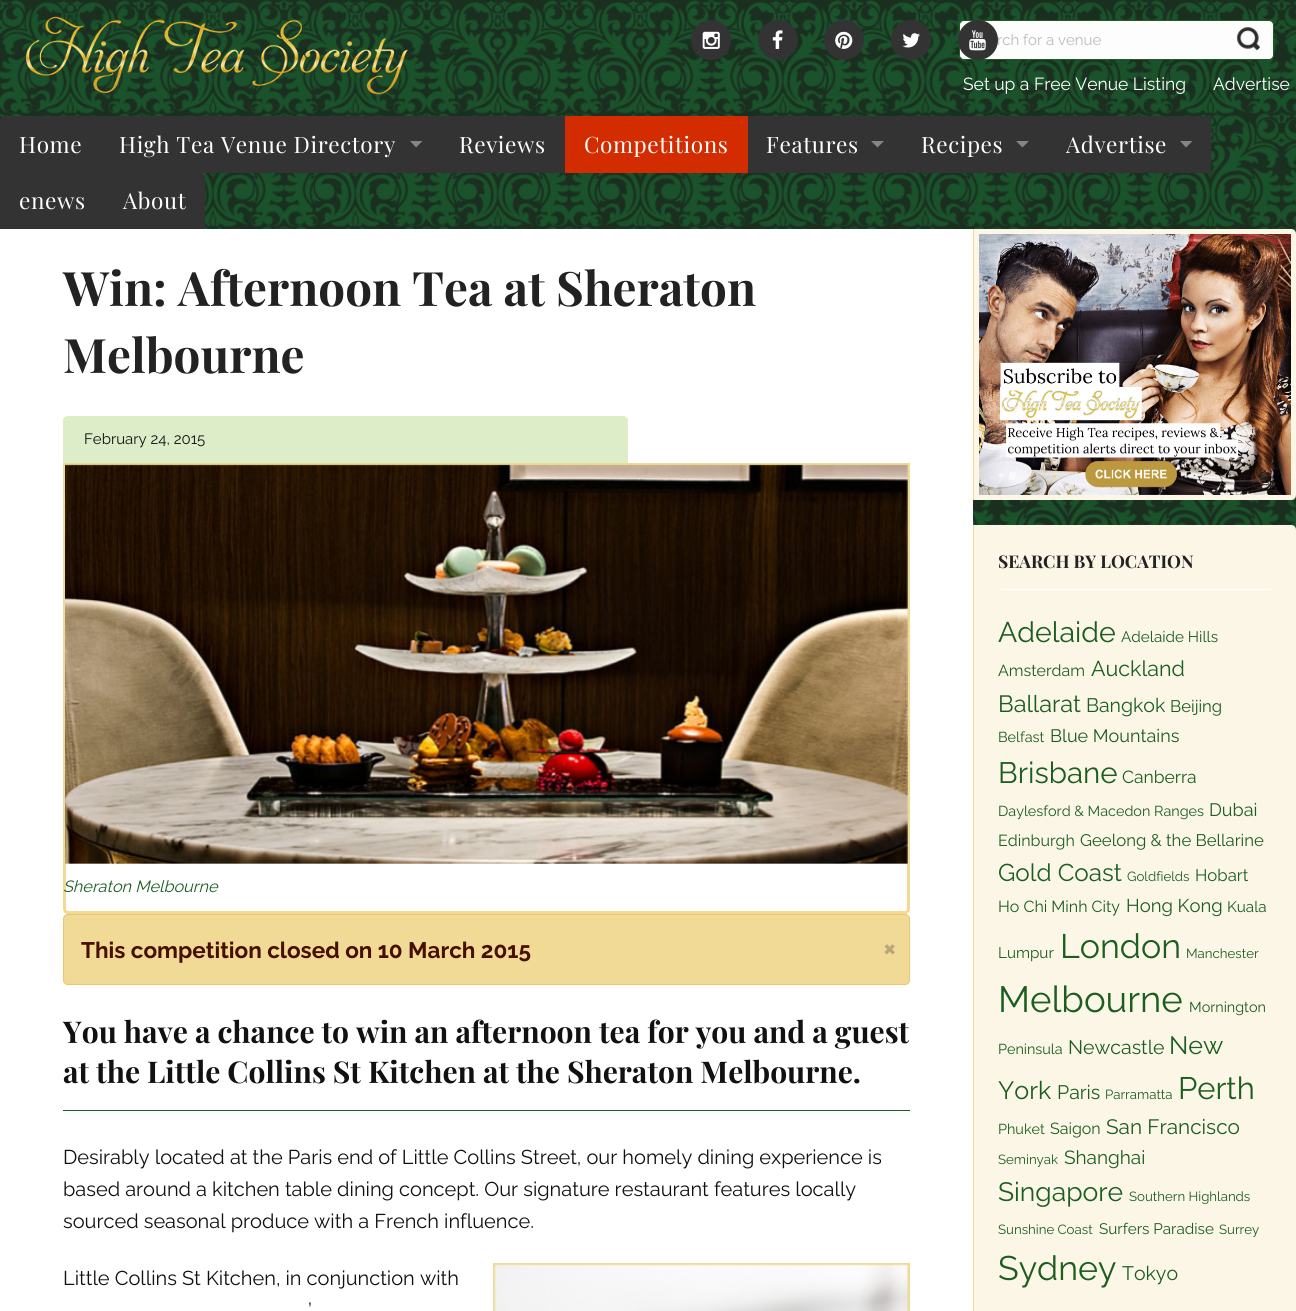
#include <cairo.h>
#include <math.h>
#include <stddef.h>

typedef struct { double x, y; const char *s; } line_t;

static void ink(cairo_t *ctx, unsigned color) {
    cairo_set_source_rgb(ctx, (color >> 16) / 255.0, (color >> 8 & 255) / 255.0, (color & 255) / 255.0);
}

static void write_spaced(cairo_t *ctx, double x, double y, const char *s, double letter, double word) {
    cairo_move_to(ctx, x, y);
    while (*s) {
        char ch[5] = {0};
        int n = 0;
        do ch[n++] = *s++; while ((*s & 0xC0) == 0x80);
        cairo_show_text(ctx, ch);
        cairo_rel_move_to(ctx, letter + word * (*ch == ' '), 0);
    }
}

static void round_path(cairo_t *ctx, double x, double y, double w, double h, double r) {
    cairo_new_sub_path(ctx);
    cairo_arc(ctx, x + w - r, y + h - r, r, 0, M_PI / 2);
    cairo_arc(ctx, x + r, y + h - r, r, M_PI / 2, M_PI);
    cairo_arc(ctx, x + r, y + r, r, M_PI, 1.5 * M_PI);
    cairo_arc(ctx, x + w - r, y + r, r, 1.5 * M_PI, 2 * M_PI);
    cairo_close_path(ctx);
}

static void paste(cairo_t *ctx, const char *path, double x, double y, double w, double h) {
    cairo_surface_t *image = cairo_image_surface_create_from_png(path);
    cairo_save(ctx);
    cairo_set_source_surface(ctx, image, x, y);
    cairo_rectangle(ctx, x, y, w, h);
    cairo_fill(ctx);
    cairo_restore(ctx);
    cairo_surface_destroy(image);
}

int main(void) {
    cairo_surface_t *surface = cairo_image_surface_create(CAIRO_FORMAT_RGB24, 1296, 1311);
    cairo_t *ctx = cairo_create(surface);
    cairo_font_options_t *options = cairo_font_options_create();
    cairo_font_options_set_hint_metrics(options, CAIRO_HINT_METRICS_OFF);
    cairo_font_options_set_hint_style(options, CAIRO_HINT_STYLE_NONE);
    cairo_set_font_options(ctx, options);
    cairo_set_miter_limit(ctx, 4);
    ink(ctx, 0xFFFFFF);
    cairo_paint(ctx);
    paste(ctx, "media/1.png", 0, 0, 1296, 530);
    paste(ctx, "media/2.png", 24, 16, 384, 81);
    ink(ctx, 0x333333);
    cairo_arc(ctx, 711, 40, 20, 0, 2 * M_PI);
    cairo_fill(ctx);
    paste(ctx, "media/3.png", 702, 31, 18, 18);
    cairo_arc(ctx, 778, 40, 20, 0, 2 * M_PI);
    cairo_fill(ctx);
    paste(ctx, "media/4.png", 772, 30, 11, 19);
    cairo_arc(ctx, 844, 40, 20, 0, 2 * M_PI);
    cairo_fill(ctx);
    paste(ctx, "media/5.png", 835, 31, 18, 18);
    cairo_arc(ctx, 911, 40, 20, 0, 2 * M_PI);
    cairo_fill(ctx);
    paste(ctx, "media/6.png", 902, 33, 18, 15);
    ink(ctx, 0xFDFDFD);
    round_path(ctx, 959.5, 20.5, 314, 39, 4.5);
    cairo_fill_preserve(ctx);
    ink(ctx, 0x1B5E20);
    cairo_set_line_width(ctx, 1);
    cairo_stroke(ctx);
    cairo_select_font_face(ctx, "Raleway", CAIRO_FONT_SLANT_NORMAL, CAIRO_FONT_WEIGHT_NORMAL);
    cairo_set_font_size(ctx, 15);
    ink(ctx, 0xBBBBBB);
    cairo_move_to(ctx, 997, 45);
    cairo_show_text(ctx, "rch for a venue");
    ink(ctx, 0x333333);
    cairo_new_path(ctx);
    cairo_arc(ctx, 978, 40, 20, 0, 2 * M_PI);
    cairo_fill(ctx);
    paste(ctx, "media/7.png", 969, 30, 17, 21);
    paste(ctx, "media/8.png", 1236, 27, 25, 24);
    cairo_set_font_size(ctx, 17.5);
    ink(ctx, 0xFFFFFF);
    cairo_move_to(ctx, 963, 90);
    cairo_show_text(ctx, "Set up a Free Venue Listing");
    cairo_move_to(ctx, 1213, 90);
    cairo_show_text(ctx, "Advertise");
    ink(ctx, 0x333333);
    cairo_new_path(ctx);
    cairo_move_to(ctx, 5, 116);
    cairo_line_to(ctx, 101, 116);
    cairo_line_to(ctx, 101, 173);
    cairo_line_to(ctx, 0, 173);
    cairo_line_to(ctx, 0, 121);
    cairo_curve_to(ctx, 0, 118, 2, 116, 5, 116);
    cairo_close_path(ctx);
    cairo_fill(ctx);
    cairo_select_font_face(ctx, "Playfair Display", CAIRO_FONT_SLANT_NORMAL, CAIRO_FONT_WEIGHT_NORMAL);
    cairo_set_font_size(ctx, 22.5);
    ink(ctx, 0xFFFFFF);
    write_spaced(ctx, 19, 153, "Home", 0.6, 0);
    ink(ctx, 0x333333);
    cairo_rectangle(ctx, 101, 116, 464, 57);
    cairo_fill(ctx);
    ink(ctx, 0xFFFFFF);
    write_spaced(ctx, 119, 153, "High Tea Venue Directory", 0.6, 0);
    ink(ctx, 0x858585);
    cairo_new_path(ctx);
    cairo_move_to(ctx, 410, 141);
    cairo_line_to(ctx, 422.5, 141);
    cairo_line_to(ctx, 416, 147.5);
    cairo_close_path(ctx);
    cairo_fill(ctx);
    ink(ctx, 0xFFFFFF);
    write_spaced(ctx, 459, 153, "Reviews", 0.6, 0);
    ink(ctx, 0xD22C00);
    cairo_rectangle(ctx, 565, 116, 183, 57);
    cairo_fill(ctx);
    ink(ctx, 0xFFFFFF);
    write_spaced(ctx, 584, 153, "Competitions", 0.6, 0);
    ink(ctx, 0x333333);
    cairo_rectangle(ctx, 748, 116, 463, 57);
    cairo_fill(ctx);
    ink(ctx, 0xFFFFFF);
    write_spaced(ctx, 766, 153, "Features", 0.6, 0);
    ink(ctx, 0x858585);
    cairo_new_path(ctx);
    cairo_move_to(ctx, 871, 141);
    cairo_line_to(ctx, 884, 141);
    cairo_line_to(ctx, 877.5, 147.5);
    cairo_close_path(ctx);
    cairo_fill(ctx);
    ink(ctx, 0xFFFFFF);
    write_spaced(ctx, 921, 153, "Recipes", 0.6, 0);
    ink(ctx, 0x858585);
    cairo_new_path(ctx);
    cairo_move_to(ctx, 1016, 141);
    cairo_line_to(ctx, 1029, 141);
    cairo_line_to(ctx, 1022.5, 147.5);
    cairo_close_path(ctx);
    cairo_fill(ctx);
    ink(ctx, 0xFFFFFF);
    write_spaced(ctx, 1066, 153, "Advertise", 0.6, 0);
    ink(ctx, 0x858585);
    cairo_new_path(ctx);
    cairo_move_to(ctx, 1180, 141);
    cairo_line_to(ctx, 1192.5, 141);
    cairo_line_to(ctx, 1186, 147.5);
    cairo_close_path(ctx);
    cairo_fill(ctx);
    ink(ctx, 0x333333);
    cairo_rectangle(ctx, 0, 173, 104, 56);
    cairo_fill(ctx);
    ink(ctx, 0xFFFFFF);
    write_spaced(ctx, 19, 209, "enews", 0.6, 0);
    ink(ctx, 0x333333);
    cairo_new_path(ctx);
    cairo_move_to(ctx, 104, 173);
    cairo_line_to(ctx, 200, 173);
    cairo_curve_to(ctx, 203, 173, 205, 175, 205, 178);
    cairo_line_to(ctx, 205, 229);
    cairo_line_to(ctx, 104, 229);
    cairo_close_path(ctx);
    cairo_fill(ctx);
    ink(ctx, 0xFFFFFF);
    write_spaced(ctx, 123, 209, "About", 0.6, 0);
    cairo_rectangle(ctx, 0, 229, 973, 301);
    cairo_fill(ctx);
    cairo_select_font_face(ctx, "Playfair Display", CAIRO_FONT_SLANT_NORMAL, CAIRO_FONT_WEIGHT_BOLD);
    cairo_set_font_size(ctx, 47.5);
    ink(ctx, 0x222222);
    cairo_move_to(ctx, 63, 306);
    cairo_show_text(ctx, "Win: Afternoon Tea at Sheraton");
    cairo_move_to(ctx, 63, 373);
    cairo_show_text(ctx, "Melbourne");
    ink(ctx, 0xDCEDC8);
    cairo_new_path(ctx);
    cairo_move_to(ctx, 68, 416);
    cairo_line_to(ctx, 623, 416);
    cairo_curve_to(ctx, 626, 416, 628, 418, 628, 421);
    cairo_line_to(ctx, 628, 463);
    cairo_line_to(ctx, 63, 463);
    cairo_line_to(ctx, 63, 421);
    cairo_curve_to(ctx, 63, 418, 65, 416, 68, 416);
    cairo_close_path(ctx);
    cairo_fill(ctx);
    cairo_select_font_face(ctx, "Raleway", CAIRO_FONT_SLANT_NORMAL, CAIRO_FONT_WEIGHT_NORMAL);
    cairo_set_font_size(ctx, 15);
    ink(ctx, 0x111111);
    cairo_move_to(ctx, 84, 444);
    cairo_show_text(ctx, "February 24, 2015");
    cairo_new_path(ctx);
    cairo_move_to(ctx, 64.5, 464.5);
    cairo_line_to(ctx, 908.5, 464.5);
    cairo_line_to(ctx, 908.5, 909);
    cairo_curve_to(ctx, 908.5, 911, 907, 912.5, 905, 912.5);
    cairo_line_to(ctx, 68, 912.5);
    cairo_curve_to(ctx, 66, 912.5, 64.5, 911, 64.5, 909);
    cairo_close_path(ctx);
    ink(ctx, 0xF1D996);
    cairo_set_line_width(ctx, 3);
    cairo_stroke(ctx);
    paste(ctx, "media/9.png", 65, 464, 843, 400);
    cairo_select_font_face(ctx, "Raleway", CAIRO_FONT_SLANT_ITALIC, CAIRO_FONT_WEIGHT_NORMAL);
    cairo_set_font_size(ctx, 16.25);
    ink(ctx, 0x1B5E20);
    cairo_move_to(ctx, 63, 892);
    cairo_show_text(ctx, "Sheraton Melbourne");
    ink(ctx, 0xF1D996);
    round_path(ctx, 63.5, 914.5, 846, 70, 4.5);
    cairo_fill_preserve(ctx);
    ink(ctx, 0xEBC766);
    cairo_set_line_width(ctx, 1);
    cairo_stroke(ctx);
    cairo_select_font_face(ctx, "Raleway", CAIRO_FONT_SLANT_NORMAL, CAIRO_FONT_WEIGHT_BOLD);
    cairo_set_font_size(ctx, 22.5);
    ink(ctx, 0x470F00);
    cairo_move_to(ctx, 81, 958);
    cairo_show_text(ctx, "This competition closed on 10 March 2015");
    cairo_set_font_size(ctx, 28);
    ink(ctx, 0xB8A778);
    cairo_move_to(ctx, 883, 957);
    cairo_show_text(ctx, "×");
    ink(ctx, 0x1B5E20);
    cairo_rectangle(ctx, 63, 1110, 847, 1);
    cairo_fill(ctx);
    cairo_select_font_face(ctx, "Playfair Display", CAIRO_FONT_SLANT_NORMAL, CAIRO_FONT_WEIGHT_BOLD);
    cairo_set_font_size(ctx, 30);
    ink(ctx, 0x111111);
    cairo_move_to(ctx, 63, 1043);
    cairo_show_text(ctx, "You have a chance to win an afternoon tea for you and a guest");
    cairo_move_to(ctx, 63, 1083);
    cairo_show_text(ctx, "at the Little Collins St Kitchen at the Sheraton Melbourne.");
    cairo_select_font_face(ctx, "Raleway", CAIRO_FONT_SLANT_NORMAL, CAIRO_FONT_WEIGHT_NORMAL);
    cairo_set_font_size(ctx, 20);
    {
        static const line_t items[] = {
            {63, 1164, "Desirably located at the Paris end of Little Collins Street, our homely dining experience is"},
            {63, 1196, "based around a kitchen table dining concept. Our signature restaurant features locally"},
            {63, 1228, "sourced seasonal produce with a French influence."},
            {63, 1285, "Little Collins St Kitchen, in conjunction with"},
            {308, 1317, "’"},
        };
        for (size_t i = 0; i < sizeof items / sizeof *items; i++) {
            cairo_move_to(ctx, items[i].x, items[i].y);
            cairo_show_text(ctx, items[i].s);
        }
    }
    cairo_rectangle(ctx, 494.5, 1264.5, 414, 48);
    ink(ctx, 0xF1D996);
    cairo_set_line_width(ctx, 3);
    cairo_stroke(ctx);
    paste(ctx, "media/10.png", 494, 1264, 414, 47);
    ink(ctx, 0xFCF6E7);
    cairo_new_path(ctx);
    cairo_move_to(ctx, 973, 229);
    cairo_line_to(ctx, 1291, 229);
    cairo_curve_to(ctx, 1294, 229, 1296, 231, 1296, 234);
    cairo_line_to(ctx, 1296, 495);
    cairo_curve_to(ctx, 1296, 498, 1294, 500, 1291, 500);
    cairo_line_to(ctx, 973, 500);
    cairo_close_path(ctx);
    cairo_fill(ctx);
    ink(ctx, 0xF1D996);
    cairo_rectangle(ctx, 973, 229, 1, 271);
    cairo_fill(ctx);
    paste(ctx, "media/11.png", 979, 234, 312, 261);
    ink(ctx, 0xFCF6E7);
    cairo_new_path(ctx);
    cairo_move_to(ctx, 973, 525);
    cairo_line_to(ctx, 1291, 525);
    cairo_curve_to(ctx, 1294, 525, 1296, 527, 1296, 530);
    cairo_line_to(ctx, 1296, 1311);
    cairo_curve_to(ctx, 1296, 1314, 1294, 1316, 1291, 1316);
    cairo_line_to(ctx, 973, 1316);
    cairo_close_path(ctx);
    cairo_fill(ctx);
    ink(ctx, 0xF1D996);
    cairo_rectangle(ctx, 973, 525, 1, 786);
    cairo_fill(ctx);
    ink(ctx, 0xFFFFFF);
    cairo_rectangle(ctx, 999, 589, 272, 1);
    cairo_fill(ctx);
    cairo_select_font_face(ctx, "Playfair Display", CAIRO_FONT_SLANT_NORMAL, CAIRO_FONT_WEIGHT_BOLD);
    cairo_set_font_size(ctx, 17.5);
    ink(ctx, 0x222222);
    cairo_move_to(ctx, 998, 568);
    cairo_show_text(ctx, "SEARCH BY LOCATION");
    cairo_select_font_face(ctx, "Raleway", CAIRO_FONT_SLANT_NORMAL, CAIRO_FONT_WEIGHT_NORMAL);
    cairo_set_font_size(ctx, 28.5);
    ink(ctx, 0x1B5E20);
    cairo_move_to(ctx, 998, 642);
    cairo_show_text(ctx, "Adelaide");
    cairo_set_font_size(ctx, 15.25);
    cairo_move_to(ctx, 1121, 642);
    cairo_show_text(ctx, "Adelaide Hills");
    cairo_set_font_size(ctx, 16);
    cairo_move_to(ctx, 998, 676);
    cairo_show_text(ctx, "Amsterdam");
    cairo_set_font_size(ctx, 21.5);
    cairo_move_to(ctx, 1091, 676);
    cairo_show_text(ctx, "Auckland");
    cairo_set_font_size(ctx, 23.5);
    cairo_move_to(ctx, 998, 712);
    cairo_show_text(ctx, "Ballarat");
    cairo_set_font_size(ctx, 19.5);
    cairo_move_to(ctx, 1086, 712);
    cairo_show_text(ctx, "Bangkok");
    cairo_set_font_size(ctx, 16.75);
    cairo_move_to(ctx, 1170, 712);
    cairo_show_text(ctx, "Beijing");
    cairo_set_font_size(ctx, 14.4);
    cairo_move_to(ctx, 998, 742);
    cairo_show_text(ctx, "Belfast");
    cairo_set_font_size(ctx, 18);
    cairo_move_to(ctx, 1050, 742);
    cairo_show_text(ctx, "Blue Mountains");
    cairo_set_font_size(ctx, 29.5);
    cairo_move_to(ctx, 998, 783);
    cairo_show_text(ctx, "Brisbane");
    cairo_set_font_size(ctx, 17.5);
    cairo_move_to(ctx, 1122, 783);
    cairo_show_text(ctx, "Canberra");
    cairo_set_font_size(ctx, 14.4);
    cairo_move_to(ctx, 998, 816);
    cairo_show_text(ctx, "Daylesford & Macedon Ranges");
    cairo_set_font_size(ctx, 18);
    cairo_move_to(ctx, 1209, 816);
    cairo_show_text(ctx, "Dubai");
    cairo_set_font_size(ctx, 16);
    cairo_move_to(ctx, 998, 846);
    cairo_show_text(ctx, "Edinburgh");
    cairo_set_font_size(ctx, 16.75);
    cairo_move_to(ctx, 1080, 846);
    cairo_show_text(ctx, "Geelong & the Bellarine");
    cairo_set_font_size(ctx, 24.25);
    cairo_move_to(ctx, 998, 881);
    cairo_show_text(ctx, "Gold Coast");
    cairo_set_font_size(ctx, 13.25);
    cairo_move_to(ctx, 1127, 881);
    cairo_show_text(ctx, "Goldfields");
    cairo_set_font_size(ctx, 16.75);
    cairo_move_to(ctx, 1195, 881);
    cairo_show_text(ctx, "Hobart");
    cairo_set_font_size(ctx, 16);
    cairo_move_to(ctx, 998, 912);
    cairo_show_text(ctx, "Ho Chi Minh City");
    cairo_set_font_size(ctx, 18.5);
    cairo_move_to(ctx, 1126, 912);
    cairo_show_text(ctx, "Hong Kong");
    cairo_set_font_size(ctx, 15.25);
    cairo_move_to(ctx, 1227, 912);
    cairo_show_text(ctx, "Kuala");
    cairo_move_to(ctx, 998, 958);
    cairo_show_text(ctx, "Lumpur");
    cairo_set_font_size(ctx, 34);
    cairo_move_to(ctx, 1060, 958);
    cairo_show_text(ctx, "London");
    cairo_set_font_size(ctx, 13.25);
    cairo_move_to(ctx, 1186, 958);
    cairo_show_text(ctx, "Manchester");
    cairo_set_font_size(ctx, 36.5);
    cairo_move_to(ctx, 998, 1012);
    cairo_show_text(ctx, "Melbourne");
    cairo_set_font_size(ctx, 14.4);
    cairo_move_to(ctx, 1189, 1012);
    cairo_show_text(ctx, "Mornington");
    cairo_move_to(ctx, 998, 1054);
    cairo_show_text(ctx, "Peninsula");
    cairo_set_font_size(ctx, 19.5);
    cairo_move_to(ctx, 1068, 1054);
    cairo_show_text(ctx, "Newcastle");
    cairo_set_font_size(ctx, 25);
    cairo_move_to(ctx, 1169, 1054);
    cairo_show_text(ctx, "New");
    cairo_move_to(ctx, 998, 1099);
    cairo_show_text(ctx, "York");
    cairo_set_font_size(ctx, 19.5);
    cairo_move_to(ctx, 1057, 1099);
    cairo_show_text(ctx, "Paris");
    cairo_set_font_size(ctx, 13.25);
    cairo_move_to(ctx, 1105, 1099);
    cairo_show_text(ctx, "Parramatta");
    cairo_set_font_size(ctx, 31);
    cairo_move_to(ctx, 1178, 1099);
    cairo_show_text(ctx, "Perth");
    cairo_set_font_size(ctx, 14.4);
    cairo_move_to(ctx, 998, 1134);
    cairo_show_text(ctx, "Phuket");
    cairo_set_font_size(ctx, 16);
    cairo_move_to(ctx, 1050, 1134);
    cairo_show_text(ctx, "Saigon");
    cairo_set_font_size(ctx, 20.75);
    cairo_move_to(ctx, 1106, 1134);
    cairo_show_text(ctx, "San Francisco");
    cairo_set_font_size(ctx, 13.25);
    cairo_move_to(ctx, 998, 1164);
    cairo_show_text(ctx, "Seminyak");
    cairo_set_font_size(ctx, 19);
    cairo_move_to(ctx, 1064, 1164);
    cairo_show_text(ctx, "Shanghai");
    cairo_set_font_size(ctx, 26.5);
    cairo_move_to(ctx, 998, 1201);
    cairo_show_text(ctx, "Singapore");
    cairo_set_font_size(ctx, 13.25);
    cairo_move_to(ctx, 1129, 1201);
    cairo_show_text(ctx, "Southern Highlands");
    cairo_move_to(ctx, 998, 1234);
    cairo_show_text(ctx, "Sunshine Coast");
    cairo_set_font_size(ctx, 15.25);
    cairo_move_to(ctx, 1099, 1234);
    cairo_show_text(ctx, "Surfers Paradise");
    cairo_set_font_size(ctx, 13.25);
    cairo_move_to(ctx, 1219, 1234);
    cairo_show_text(ctx, "Surrey");
    cairo_set_font_size(ctx, 34);
    cairo_move_to(ctx, 998, 1280);
    cairo_show_text(ctx, "Sydney");
    cairo_set_font_size(ctx, 19.5);
    cairo_move_to(ctx, 1122, 1280);
    cairo_show_text(ctx, "Tokyo");
    cairo_surface_write_to_png(surface, "image.png");
    cairo_font_options_destroy(options);
    cairo_destroy(ctx);
    cairo_surface_destroy(surface);
    return 0;
}
